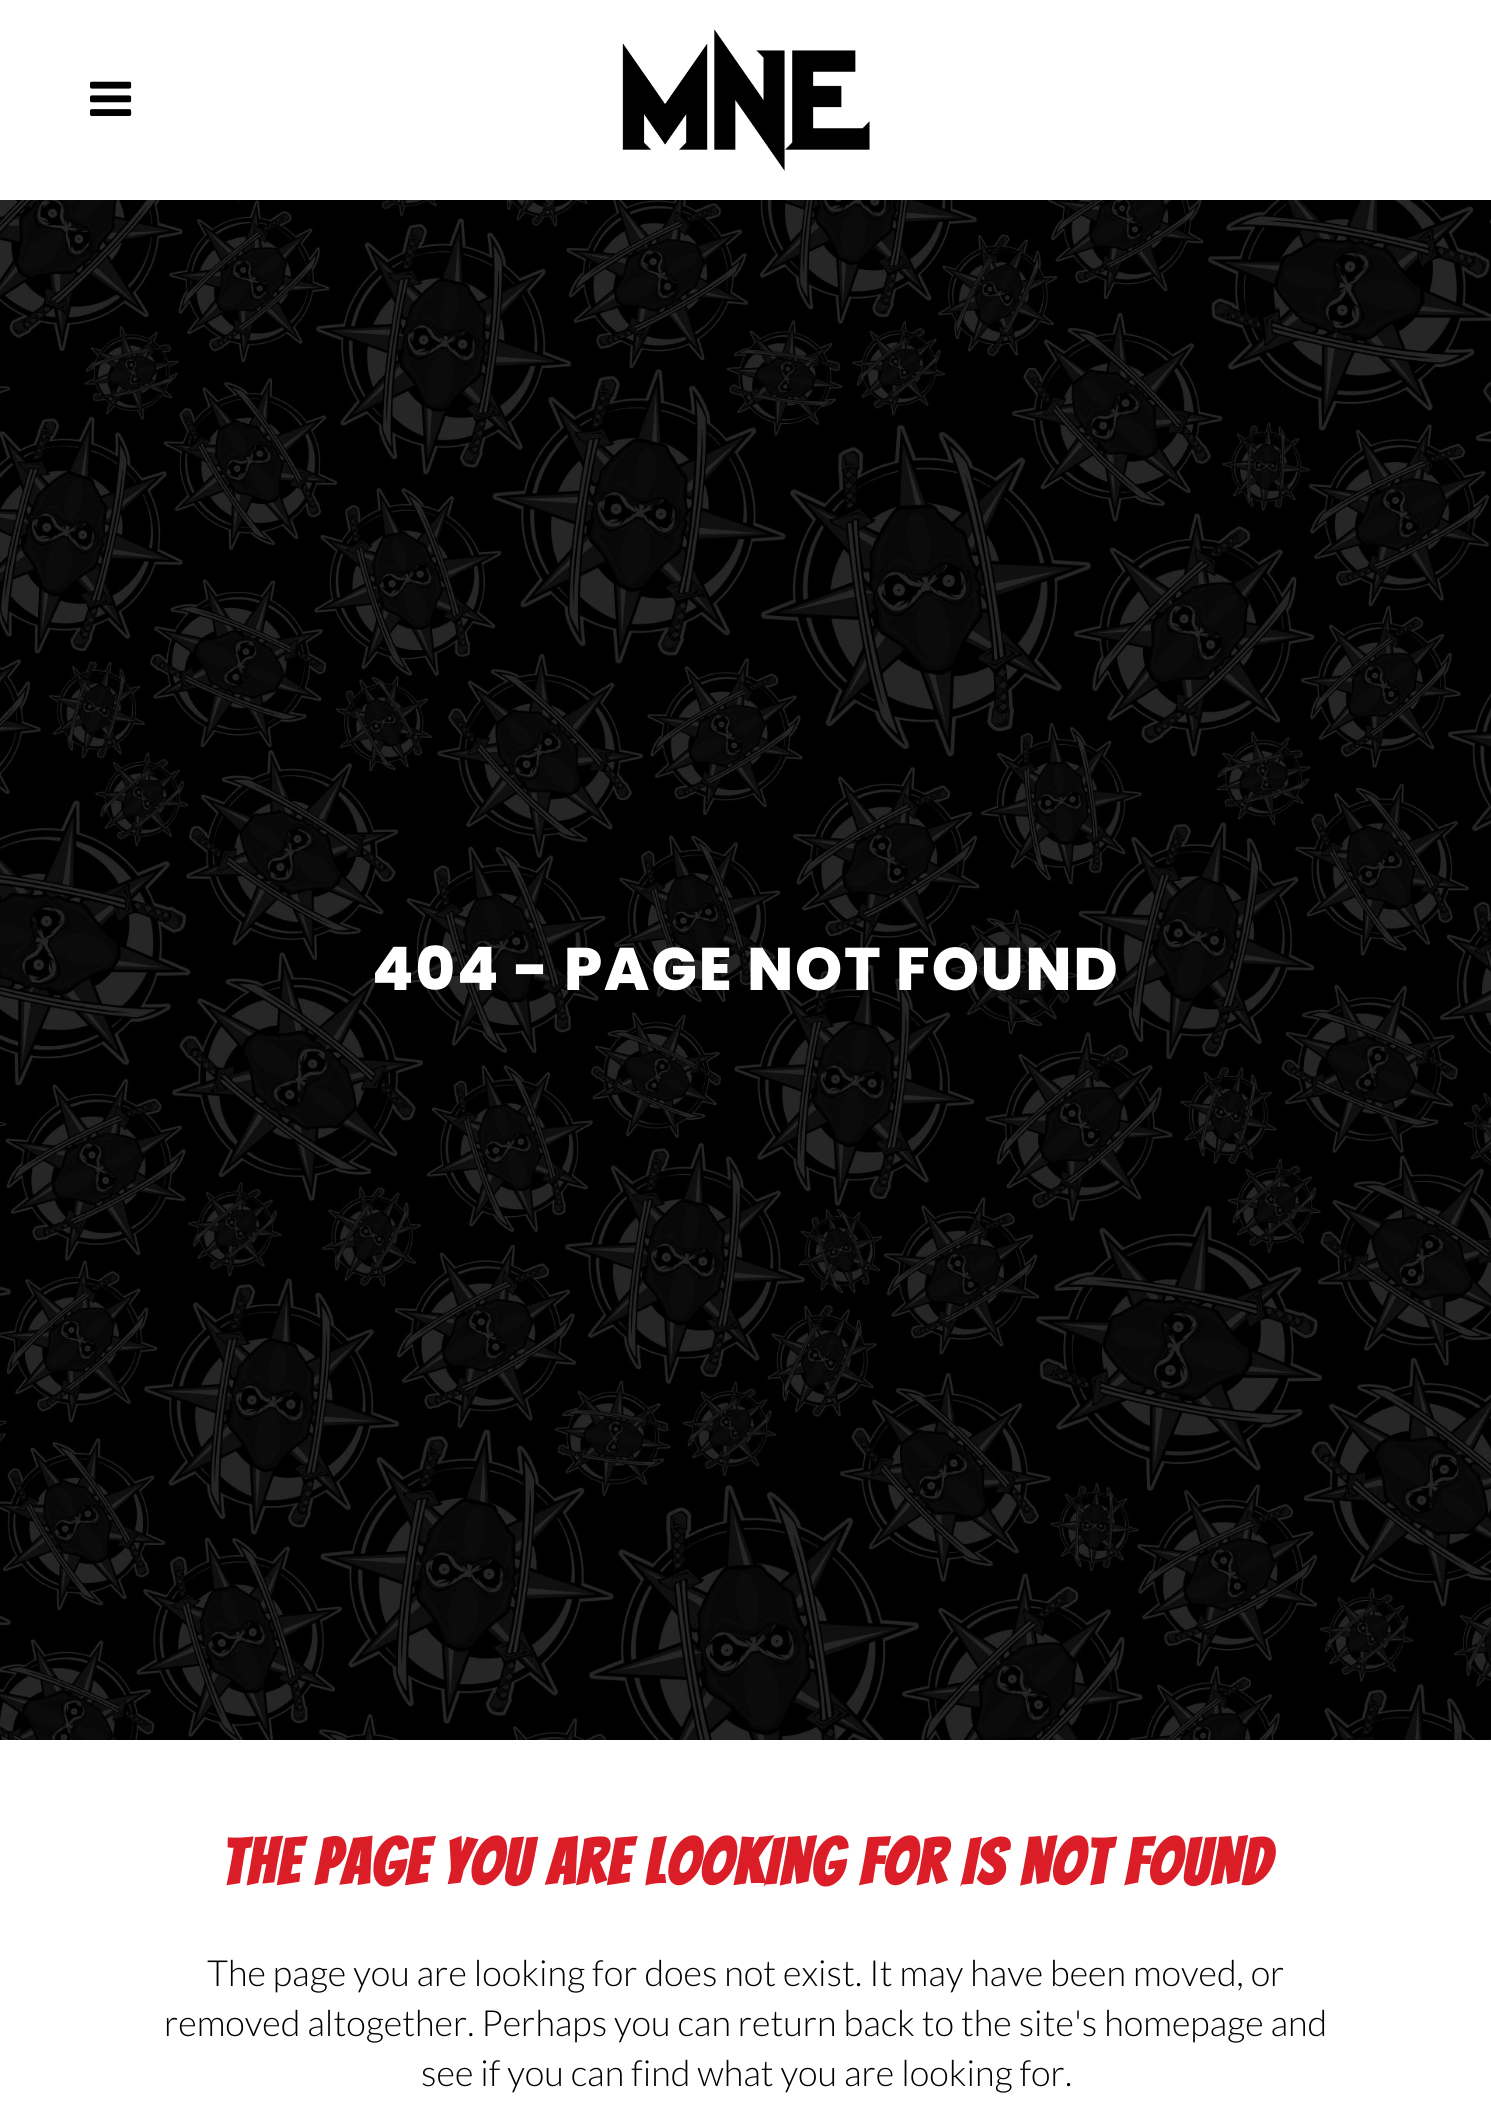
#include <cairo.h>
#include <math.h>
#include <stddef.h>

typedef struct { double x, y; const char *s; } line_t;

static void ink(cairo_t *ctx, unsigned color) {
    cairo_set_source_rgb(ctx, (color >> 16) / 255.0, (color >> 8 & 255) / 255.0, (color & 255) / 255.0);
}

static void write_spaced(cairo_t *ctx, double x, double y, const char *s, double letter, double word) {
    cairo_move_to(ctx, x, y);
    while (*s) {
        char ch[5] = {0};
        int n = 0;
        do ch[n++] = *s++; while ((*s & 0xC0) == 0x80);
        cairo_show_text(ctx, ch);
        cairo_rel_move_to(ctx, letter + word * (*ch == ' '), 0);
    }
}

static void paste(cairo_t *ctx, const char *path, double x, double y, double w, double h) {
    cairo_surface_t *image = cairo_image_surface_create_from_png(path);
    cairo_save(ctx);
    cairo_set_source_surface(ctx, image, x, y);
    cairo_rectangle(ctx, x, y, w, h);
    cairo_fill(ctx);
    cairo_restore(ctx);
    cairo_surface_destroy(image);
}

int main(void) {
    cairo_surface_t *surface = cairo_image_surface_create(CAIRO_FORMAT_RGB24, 1491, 2116);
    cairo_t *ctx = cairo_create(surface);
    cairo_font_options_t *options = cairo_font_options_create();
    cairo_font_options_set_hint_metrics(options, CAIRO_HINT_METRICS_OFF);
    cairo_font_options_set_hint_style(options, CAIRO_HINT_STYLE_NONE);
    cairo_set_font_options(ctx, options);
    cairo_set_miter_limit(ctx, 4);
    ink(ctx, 0xFFFFFF);
    cairo_paint(ctx);
    paste(ctx, "media/1.png", 90, 81, 42, 35);
    paste(ctx, "media/2.png", 622, 29, 248, 142);
    paste(ctx, "media/3.png", 0, 200, 1491, 1540);
    cairo_select_font_face(ctx, "Poppins ExtraBold", CAIRO_FONT_SLANT_NORMAL, CAIRO_FONT_WEIGHT_NORMAL);
    cairo_set_font_size(ctx, 60);
    ink(ctx, 0xFFFFFF);
    write_spaced(ctx, 372, 990, "404 - PAGE NOT FOUND", 2, 0);
    cairo_select_font_face(ctx, "Bangers", CAIRO_FONT_SLANT_NORMAL, CAIRO_FONT_WEIGHT_BOLD);
    cairo_set_font_size(ctx, 64);
    ink(ctx, 0xDB1D28);
    write_spaced(ctx, 221, 1885, "THE PAGE YOU ARE LOOKING FOR IS NOT FOUND", 2, 0);
    cairo_select_font_face(ctx, "Lato Light", CAIRO_FONT_SLANT_NORMAL, CAIRO_FONT_WEIGHT_NORMAL);
    cairo_set_font_size(ctx, 36);
    ink(ctx, 0x000000);
    {
        static const line_t items[] = {
            {207, 1986, "The page you are looking for does not exist. It may have been moved, or"},
            {164, 2036, "removed altogether. Perhaps you can return back to the site's homepage and"},
            {421, 2086, "see if you can find what you are looking for."},
        };
        for (size_t i = 0; i < sizeof items / sizeof *items; i++) {
            cairo_move_to(ctx, items[i].x, items[i].y);
            cairo_show_text(ctx, items[i].s);
        }
    }
    cairo_surface_write_to_png(surface, "image.png");
    cairo_font_options_destroy(options);
    cairo_destroy(ctx);
    cairo_surface_destroy(surface);
    return 0;
}
